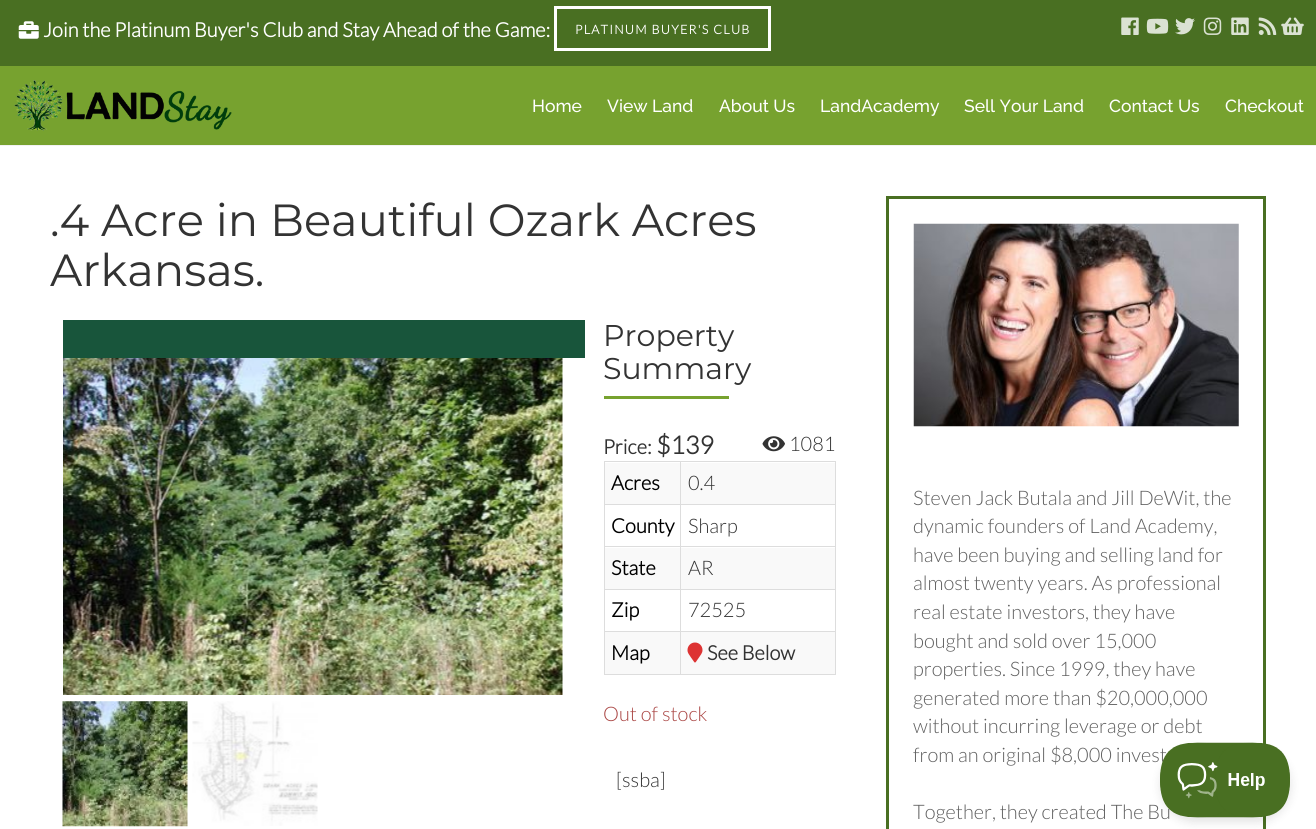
#include <cairo.h>
#include <math.h>
#include <stddef.h>

typedef struct { double x, y; const char *s; } line_t;
typedef struct { double x, y, w, h; unsigned color; } box_t;

static void ink(cairo_t *ctx, unsigned color) {
    cairo_set_source_rgb(ctx, (color >> 16) / 255.0, (color >> 8 & 255) / 255.0, (color & 255) / 255.0);
}

static void write_spaced(cairo_t *ctx, double x, double y, const char *s, double letter, double word) {
    cairo_move_to(ctx, x, y);
    while (*s) {
        char ch[5] = {0};
        int n = 0;
        do ch[n++] = *s++; while ((*s & 0xC0) == 0x80);
        cairo_show_text(ctx, ch);
        cairo_rel_move_to(ctx, letter + word * (*ch == ' '), 0);
    }
}

static void round_path(cairo_t *ctx, double x, double y, double w, double h, double r) {
    cairo_new_sub_path(ctx);
    cairo_arc(ctx, x + w - r, y + h - r, r, 0, M_PI / 2);
    cairo_arc(ctx, x + r, y + h - r, r, M_PI / 2, M_PI);
    cairo_arc(ctx, x + r, y + r, r, M_PI, 1.5 * M_PI);
    cairo_arc(ctx, x + w - r, y + r, r, 1.5 * M_PI, 2 * M_PI);
    cairo_close_path(ctx);
}

static void blur_box(cairo_t *ctx, double x, double y, double w, double h, double r, double blur, double alpha) {
    cairo_push_group_with_content(ctx, CAIRO_CONTENT_ALPHA);
    cairo_set_operator(ctx, CAIRO_OPERATOR_SOURCE);
    for (int i = 15; i >= -15 && fmin(w, h) + blur * i / 3 > 0; i -= 2) {
        double e = blur * i / 6;
        cairo_set_source_rgba(ctx, 0, 0, 0, alpha * erfc((i - 1) / 8.5) / 2);
        round_path(ctx, x - e, y - e, w + 2 * e, h + 2 * e, fmax(0, fmin(r + e + blur * .6, fmin(w, h) / 2 + e)));
        cairo_fill(ctx);
    }
    cairo_pattern_t *soft = cairo_pop_group(ctx);
    cairo_mask(ctx, soft);
    cairo_pattern_destroy(soft);
}

static void paste(cairo_t *ctx, const char *path, double x, double y, double w, double h) {
    cairo_surface_t *image = cairo_image_surface_create_from_png(path);
    cairo_save(ctx);
    cairo_set_source_surface(ctx, image, x, y);
    cairo_rectangle(ctx, x, y, w, h);
    cairo_fill(ctx);
    cairo_restore(ctx);
    cairo_surface_destroy(image);
}

int main(void) {
    cairo_surface_t *surface = cairo_image_surface_create(CAIRO_FORMAT_RGB24, 1316, 829);
    cairo_t *ctx = cairo_create(surface);
    cairo_font_options_t *options = cairo_font_options_create();
    cairo_font_options_set_hint_metrics(options, CAIRO_HINT_METRICS_OFF);
    cairo_font_options_set_hint_style(options, CAIRO_HINT_STYLE_NONE);
    cairo_set_font_options(ctx, options);
    cairo_set_miter_limit(ctx, 4);
    ink(ctx, 0xFFFFFF);
    cairo_paint(ctx);
    {
        static const box_t items[] = {
            {0, 66, 1316, 79, 0x77A22F},
            {0, 145, 1316, 1, 0xF2F2F2},
            {0, 0, 1316, 66, 0x496F22},
        };
        for (size_t i = 0; i < sizeof items / sizeof *items; i++) {
            ink(ctx, items[i].color);
            cairo_rectangle(ctx, items[i].x, items[i].y, items[i].w, items[i].h);
            cairo_fill(ctx);
        }
    }
    paste(ctx, "media/1.png", 18, 21, 21, 18);
    cairo_select_font_face(ctx, "Lato", CAIRO_FONT_SLANT_NORMAL, CAIRO_FONT_WEIGHT_BOLD);
    cairo_set_font_size(ctx, 20);
    ink(ctx, 0xFFFFFF);
    cairo_move_to(ctx, 43, 37);
    cairo_show_text(ctx, "Join the Platinum Buyer's Club and Stay Ahead of the Game:");
    cairo_rectangle(ctx, 555.5, 7.5, 214, 42);
    cairo_set_line_width(ctx, 3);
    cairo_stroke(ctx);
    cairo_set_font_size(ctx, 12.5);
    write_spaced(ctx, 575, 34, "PLATINUM BUYER'S CLUB", 1.25, 0);
    paste(ctx, "media/2.png", 1121, 17, 18, 18);
    paste(ctx, "media/3.png", 1146, 18, 23, 16);
    paste(ctx, "media/4.png", 1175, 18, 20, 17);
    paste(ctx, "media/5.png", 1203, 17, 19, 18);
    paste(ctx, "media/6.png", 1231, 17, 18, 18);
    paste(ctx, "media/7.png", 1258, 17, 19, 18);
    paste(ctx, "media/8.png", 1281, 17, 23, 18);
    paste(ctx, "media/9.png", 14, 80, 218, 51);
    cairo_select_font_face(ctx, "Raleway Thin", CAIRO_FONT_SLANT_NORMAL, CAIRO_FONT_WEIGHT_NORMAL);
    cairo_set_font_size(ctx, 17.5);
    {
        static const line_t items[] = {
            {532, 112, "Home"},
            {607, 112, "View Land"},
            {719, 112, "About Us"},
            {820, 112, "LandAcademy"},
            {964, 112, "Sell Your Land"},
            {1109, 112, "Contact Us"},
            {1225, 112, "Checkout"},
        };
        for (size_t i = 0; i < sizeof items / sizeof *items; i++) {
            cairo_move_to(ctx, items[i].x, items[i].y);
            cairo_show_text(ctx, items[i].s);
        }
    }
    cairo_select_font_face(ctx, "Montserrat", CAIRO_FONT_SLANT_NORMAL, CAIRO_FONT_WEIGHT_NORMAL);
    cairo_set_font_size(ctx, 45);
    ink(ctx, 0x333333);
    cairo_move_to(ctx, 50, 236);
    cairo_show_text(ctx, ".4 Acre in Beautiful Ozark Acres");
    cairo_move_to(ctx, 50, 286);
    cairo_show_text(ctx, "Arkansas.");
    ink(ctx, 0x18553B);
    cairo_rectangle(ctx, 63, 320, 522, 38);
    cairo_fill(ctx);
    paste(ctx, "media/10.png", 63, 358, 500, 337);
    paste(ctx, "media/11.png", 62, 701, 126, 126);
    paste(ctx, "media/12.png", 192, 701, 126, 125);
    cairo_set_font_size(ctx, 30);
    ink(ctx, 0x333333);
    cairo_move_to(ctx, 603, 346);
    cairo_show_text(ctx, "Property");
    cairo_move_to(ctx, 603, 379);
    cairo_show_text(ctx, "Summary");
    ink(ctx, 0x77A22F);
    cairo_rectangle(ctx, 604, 396, 125, 3);
    cairo_fill(ctx);
    cairo_select_font_face(ctx, "Lato", CAIRO_FONT_SLANT_NORMAL, CAIRO_FONT_WEIGHT_BOLD);
    cairo_set_font_size(ctx, 20);
    ink(ctx, 0x333333);
    cairo_move_to(ctx, 603, 454);
    cairo_show_text(ctx, "Price:");
    cairo_set_font_size(ctx, 25);
    cairo_move_to(ctx, 656, 454);
    cairo_show_text(ctx, "$139");
    paste(ctx, "media/13.png", 762, 436, 23, 16);
    cairo_select_font_face(ctx, "Lato Light", CAIRO_FONT_SLANT_NORMAL, CAIRO_FONT_WEIGHT_NORMAL);
    cairo_set_font_size(ctx, 20);
    cairo_move_to(ctx, 789, 451);
    cairo_show_text(ctx, "1081");
    {
        static const box_t items[] = {
            {604, 461, 232, 1, 0xDDDDDD},
            {835, 461, 1, 214, 0xDDDDDD},
            {604, 674, 232, 1, 0xDDDDDD},
            {604, 461, 1, 214, 0xDDDDDD},
            {605, 463, 230, 41, 0xF9F9F9},
        };
        for (size_t i = 0; i < sizeof items / sizeof *items; i++) {
            ink(ctx, items[i].color);
            cairo_rectangle(ctx, items[i].x, items[i].y, items[i].w, items[i].h);
            cairo_fill(ctx);
        }
    }
    cairo_select_font_face(ctx, "Lato", CAIRO_FONT_SLANT_NORMAL, CAIRO_FONT_WEIGHT_BOLD);
    ink(ctx, 0x000000);
    cairo_move_to(ctx, 611, 490);
    cairo_show_text(ctx, "Acres");
    {
        static const box_t items[] = {
            {680, 504, 156, 1, 0xDDDDDD},
            {680, 546, 156, 1, 0xDDDDDD},
            {605, 548, 230, 41, 0xF9F9F9},
            {680, 589, 156, 1, 0xDDDDDD},
            {605, 632, 230, 42, 0xF9F9F9},
            {680, 631, 156, 1, 0xDDDDDD},
            {680, 631, 1, 44, 0xDDDDDD},
            {604, 631, 77, 1, 0xDDDDDD},
            {680, 589, 1, 44, 0xDDDDDD},
            {604, 589, 77, 1, 0xDDDDDD},
            {680, 546, 1, 44, 0xDDDDDD},
            {604, 546, 77, 1, 0xDDDDDD},
            {680, 504, 1, 44, 0xDDDDDD},
            {604, 504, 77, 1, 0xDDDDDD},
            {680, 461, 1, 44, 0xDDDDDD},
        };
        for (size_t i = 0; i < sizeof items / sizeof *items; i++) {
            ink(ctx, items[i].color);
            cairo_rectangle(ctx, items[i].x, items[i].y, items[i].w, items[i].h);
            cairo_fill(ctx);
        }
    }
    cairo_select_font_face(ctx, "Lato Light", CAIRO_FONT_SLANT_NORMAL, CAIRO_FONT_WEIGHT_NORMAL);
    ink(ctx, 0x333333);
    cairo_move_to(ctx, 688, 490);
    cairo_show_text(ctx, "0.4");
    cairo_select_font_face(ctx, "Lato", CAIRO_FONT_SLANT_NORMAL, CAIRO_FONT_WEIGHT_BOLD);
    ink(ctx, 0x000000);
    cairo_move_to(ctx, 611, 533);
    cairo_show_text(ctx, "County");
    cairo_select_font_face(ctx, "Lato Light", CAIRO_FONT_SLANT_NORMAL, CAIRO_FONT_WEIGHT_NORMAL);
    ink(ctx, 0x333333);
    cairo_move_to(ctx, 688, 533);
    cairo_show_text(ctx, "Sharp");
    cairo_select_font_face(ctx, "Lato", CAIRO_FONT_SLANT_NORMAL, CAIRO_FONT_WEIGHT_BOLD);
    ink(ctx, 0x000000);
    cairo_move_to(ctx, 611, 575);
    cairo_show_text(ctx, "State");
    cairo_select_font_face(ctx, "Lato Light", CAIRO_FONT_SLANT_NORMAL, CAIRO_FONT_WEIGHT_NORMAL);
    ink(ctx, 0x333333);
    cairo_move_to(ctx, 688, 575);
    cairo_show_text(ctx, "AR");
    cairo_select_font_face(ctx, "Lato", CAIRO_FONT_SLANT_NORMAL, CAIRO_FONT_WEIGHT_BOLD);
    ink(ctx, 0x000000);
    cairo_move_to(ctx, 611, 617);
    cairo_show_text(ctx, "Zip");
    cairo_select_font_face(ctx, "Lato Light", CAIRO_FONT_SLANT_NORMAL, CAIRO_FONT_WEIGHT_NORMAL);
    ink(ctx, 0x333333);
    cairo_move_to(ctx, 688, 617);
    cairo_show_text(ctx, "72525");
    cairo_select_font_face(ctx, "Lato", CAIRO_FONT_SLANT_NORMAL, CAIRO_FONT_WEIGHT_BOLD);
    ink(ctx, 0x000000);
    cairo_move_to(ctx, 611, 660);
    cairo_show_text(ctx, "Map");
    paste(ctx, "media/14.png", 687, 642, 16, 21);
    ink(ctx, 0x333333);
    cairo_move_to(ctx, 707, 660);
    cairo_show_text(ctx, "See Below");
    cairo_select_font_face(ctx, "Lato Light", CAIRO_FONT_SLANT_NORMAL, CAIRO_FONT_WEIGHT_NORMAL);
    ink(ctx, 0xA94442);
    cairo_move_to(ctx, 603, 721);
    cairo_show_text(ctx, "Out of stock");
    ink(ctx, 0x333333);
    cairo_move_to(ctx, 616, 787);
    cairo_show_text(ctx, "[ssba]");
    cairo_rectangle(ctx, 887.5, 197.5, 377, 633);
    ink(ctx, 0x496F22);
    cairo_stroke(ctx);
    paste(ctx, "media/15.png", 913, 223, 326, 204);
    ink(ctx, 0x5F5F5F);
    {
        static const line_t items[] = {
            {913, 505, "Steven Jack Butala and Jill DeWit, the"},
            {913, 533, "dynamic founders of Land Academy,"},
            {913, 562, "have been buying and selling land for"},
            {913, 590, "almost twenty years. As professional"},
            {913, 619, "real estate investors, they have"},
            {913, 648, "bought and sold over 15,000"},
            {913, 676, "properties. Since 1999, they have"},
            {913, 705, "generated more than $20,000,000"},
            {913, 733, "without incurring leverage or debt"},
            {913, 762, "from an original $8,000 invest"},
            {913, 819, "Together, they created The Bu"},
        };
        for (size_t i = 0; i < sizeof items / sizeof *items; i++) {
            cairo_move_to(ctx, items[i].x, items[i].y);
            cairo_show_text(ctx, items[i].s);
        }
    }
    ink(ctx, 0x000000);
    blur_box(ctx, 1160, 748, 131, 75, 37.5, 4.5, 0.1);
    paste(ctx, "media/16.png", 1160, 742, 130, 76);
    cairo_surface_write_to_png(surface, "image.png");
    cairo_font_options_destroy(options);
    cairo_destroy(ctx);
    cairo_surface_destroy(surface);
    return 0;
}
